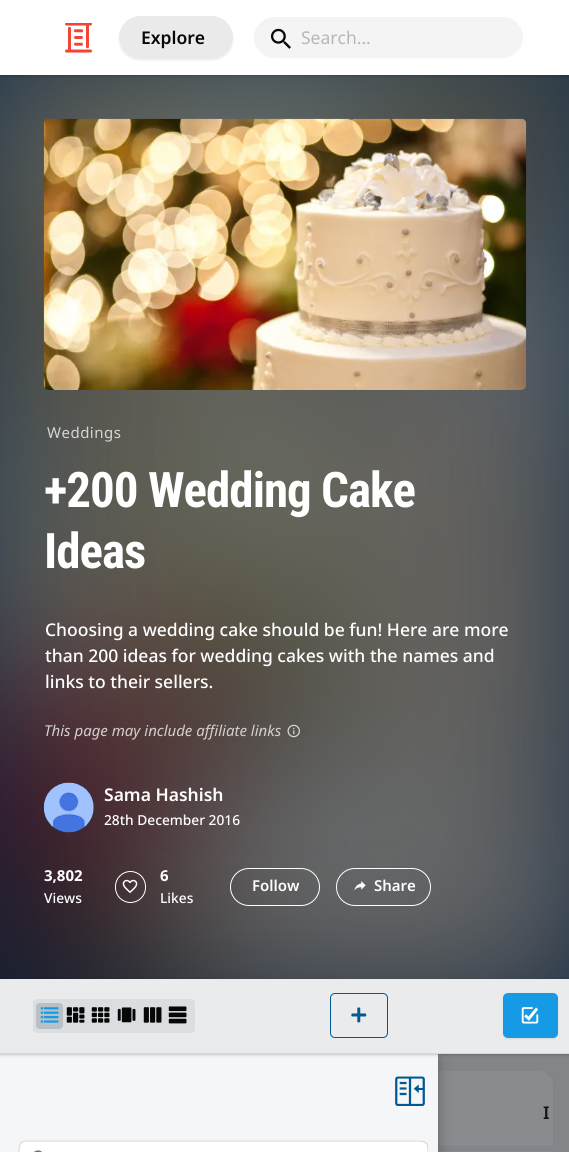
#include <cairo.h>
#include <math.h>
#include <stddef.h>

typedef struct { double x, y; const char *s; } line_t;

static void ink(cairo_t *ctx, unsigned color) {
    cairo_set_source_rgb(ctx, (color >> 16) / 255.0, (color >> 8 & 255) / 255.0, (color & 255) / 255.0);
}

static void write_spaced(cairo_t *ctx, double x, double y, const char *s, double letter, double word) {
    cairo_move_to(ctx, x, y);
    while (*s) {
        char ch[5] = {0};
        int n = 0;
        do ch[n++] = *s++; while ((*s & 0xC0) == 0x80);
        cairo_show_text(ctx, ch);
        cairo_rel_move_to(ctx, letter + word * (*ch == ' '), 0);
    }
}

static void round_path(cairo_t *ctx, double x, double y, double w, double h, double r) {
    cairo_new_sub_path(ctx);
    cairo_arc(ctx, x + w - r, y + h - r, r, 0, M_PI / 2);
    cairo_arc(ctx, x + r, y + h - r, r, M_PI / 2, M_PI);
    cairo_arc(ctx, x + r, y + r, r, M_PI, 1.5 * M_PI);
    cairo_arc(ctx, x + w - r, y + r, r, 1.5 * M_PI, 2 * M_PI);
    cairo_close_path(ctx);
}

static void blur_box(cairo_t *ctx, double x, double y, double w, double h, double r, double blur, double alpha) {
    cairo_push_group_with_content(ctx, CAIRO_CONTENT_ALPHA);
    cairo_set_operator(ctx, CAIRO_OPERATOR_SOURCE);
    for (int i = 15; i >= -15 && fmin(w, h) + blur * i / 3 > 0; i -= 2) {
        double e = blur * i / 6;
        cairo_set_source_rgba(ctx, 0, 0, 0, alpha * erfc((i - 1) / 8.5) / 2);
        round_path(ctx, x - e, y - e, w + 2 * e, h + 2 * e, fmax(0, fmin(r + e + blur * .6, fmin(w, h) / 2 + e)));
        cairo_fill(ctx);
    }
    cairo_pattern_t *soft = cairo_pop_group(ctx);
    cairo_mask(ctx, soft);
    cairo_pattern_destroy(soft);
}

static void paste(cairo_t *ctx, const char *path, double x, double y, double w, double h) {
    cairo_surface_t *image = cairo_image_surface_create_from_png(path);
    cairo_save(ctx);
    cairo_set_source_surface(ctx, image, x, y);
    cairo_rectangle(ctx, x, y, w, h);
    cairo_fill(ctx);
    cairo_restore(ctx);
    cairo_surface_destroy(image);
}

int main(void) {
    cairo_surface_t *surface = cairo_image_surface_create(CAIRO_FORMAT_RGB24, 569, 1152);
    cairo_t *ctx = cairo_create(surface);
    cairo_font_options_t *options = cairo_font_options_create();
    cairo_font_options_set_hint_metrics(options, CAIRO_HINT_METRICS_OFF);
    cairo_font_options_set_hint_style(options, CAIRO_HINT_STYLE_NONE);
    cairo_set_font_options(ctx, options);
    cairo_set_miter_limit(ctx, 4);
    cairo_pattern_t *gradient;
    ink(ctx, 0xFFFFFF);
    cairo_paint(ctx);
    gradient = cairo_pattern_create_linear(285, 979, 285, 75);
    cairo_pattern_add_color_stop_rgba(gradient, 0, 0.031, 0.129, 0.239, 1);
    cairo_pattern_add_color_stop_rgba(gradient, 1, 0.031, 0.161, 0.286, 1);
    cairo_set_source(ctx, gradient);
    cairo_pattern_destroy(gradient);
    cairo_rectangle(ctx, 0, 75, 569, 904);
    cairo_fill(ctx);
    paste(ctx, "media/3.png", 0, 75, 569, 904);
    ink(ctx, 0x000000);
    blur_box(ctx, 1, 3, 568, 72, 0, 1, 0.15);
    blur_box(ctx, 0, 1, 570, 75, 0, 2, 0.15);
    ink(ctx, 0xFFFFFF);
    cairo_rectangle(ctx, 0, 0, 569, 75);
    cairo_fill(ctx);
    paste(ctx, "media/1.png", 65, 23, 27, 30);
    cairo_save(ctx);
    cairo_set_fill_rule(ctx, CAIRO_FILL_RULE_EVEN_ODD);
    cairo_new_path(ctx);
    cairo_move_to(ctx, 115, 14);
    cairo_line_to(ctx, 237, 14);
    cairo_line_to(ctx, 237, 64);
    cairo_line_to(ctx, 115, 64);
    cairo_close_path(ctx);
    cairo_move_to(ctx, 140.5, 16);
    cairo_line_to(ctx, 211.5, 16);
    cairo_curve_to(ctx, 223.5, 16, 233, 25.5, 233, 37.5);
    cairo_curve_to(ctx, 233, 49.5, 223.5, 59, 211.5, 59);
    cairo_line_to(ctx, 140.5, 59);
    cairo_curve_to(ctx, 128.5, 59, 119, 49.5, 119, 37.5);
    cairo_curve_to(ctx, 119, 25.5, 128.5, 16, 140.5, 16);
    cairo_close_path(ctx);
    cairo_clip(ctx);
    ink(ctx, 0x000000);
    blur_box(ctx, 119, 18, 114, 42, 21, 1, 0.08);
    cairo_restore(ctx);
    cairo_set_source_rgba(ctx, 0.443, 0.443, 0.482, 0.15);
    round_path(ctx, 119, 16, 114, 43, 21.5);
    cairo_fill(ctx);
    cairo_select_font_face(ctx, "Noto Sans SemiBold", CAIRO_FONT_SLANT_NORMAL, CAIRO_FONT_WEIGHT_NORMAL);
    cairo_set_font_size(ctx, 17.5);
    ink(ctx, 0x070707);
    cairo_move_to(ctx, 141, 44);
    cairo_show_text(ctx, "Explore");
    ink(ctx, 0xF4F4F5);
    round_path(ctx, 253.5, 16.5, 270, 42, 21);
    cairo_fill_preserve(ctx);
    ink(ctx, 0xFFFFFF);
    cairo_set_line_width(ctx, 1);
    cairo_stroke(ctx);
    paste(ctx, "media/2.png", 270, 28, 21, 21);
    cairo_select_font_face(ctx, "Noto Sans", CAIRO_FONT_SLANT_NORMAL, CAIRO_FONT_WEIGHT_NORMAL);
    ink(ctx, 0xB7B7B8);
    cairo_move_to(ctx, 301, 44);
    cairo_show_text(ctx, "Search...");
    paste(ctx, "media/4.png", 43, 118, 484, 272);
    cairo_set_font_size(ctx, 15);
    ink(ctx, 0xD5D5D4);
    write_spaced(ctx, 47, 438, "Weddings", 0.5, 0);
    cairo_select_font_face(ctx, "Roboto Condensed", CAIRO_FONT_SLANT_NORMAL, CAIRO_FONT_WEIGHT_BOLD);
    cairo_set_font_size(ctx, 49);
    ink(ctx, 0xFFFFFF);
    write_spaced(ctx, 44, 507, "+200 Wedding Cake", -1, 0);
    write_spaced(ctx, 44, 568, "Ideas", -1, 0);
    cairo_select_font_face(ctx, "Noto Sans Medium", CAIRO_FONT_SLANT_NORMAL, CAIRO_FONT_WEIGHT_NORMAL);
    cairo_set_font_size(ctx, 17.5);
    {
        static const line_t items[] = {
            {45, 636, "Choosing a wedding cake should be fun! Here are more"},
            {45, 662, "than 200 ideas for wedding cakes with the names and"},
            {45, 688, "links to their sellers."},
        };
        for (size_t i = 0; i < sizeof items / sizeof *items; i++) {
            cairo_move_to(ctx, items[i].x, items[i].y);
            cairo_show_text(ctx, items[i].s);
        }
    }
    cairo_select_font_face(ctx, "Noto Sans", CAIRO_FONT_SLANT_ITALIC, CAIRO_FONT_WEIGHT_NORMAL);
    cairo_set_font_size(ctx, 15);
    ink(ctx, 0xD4CFCF);
    cairo_move_to(ctx, 44, 736);
    cairo_show_text(ctx, "This page may include affiliate links");
    paste(ctx, "media/5.png", 287, 724, 13, 14);
    paste(ctx, "media/6.png", 43, 782, 51, 51);
    cairo_select_font_face(ctx, "Noto Sans SemiBold", CAIRO_FONT_SLANT_NORMAL, CAIRO_FONT_WEIGHT_NORMAL);
    cairo_set_font_size(ctx, 17.5);
    ink(ctx, 0xFFFFFF);
    cairo_move_to(ctx, 104, 801);
    cairo_show_text(ctx, "Sama Hashish");
    cairo_select_font_face(ctx, "Noto Sans Medium", CAIRO_FONT_SLANT_NORMAL, CAIRO_FONT_WEIGHT_NORMAL);
    cairo_set_font_size(ctx, 13.75);
    cairo_move_to(ctx, 104, 825);
    cairo_show_text(ctx, "28th December 2016");
    cairo_select_font_face(ctx, "Noto Sans", CAIRO_FONT_SLANT_NORMAL, CAIRO_FONT_WEIGHT_BOLD);
    cairo_set_font_size(ctx, 15);
    cairo_move_to(ctx, 44, 881);
    cairo_show_text(ctx, "3,802");
    cairo_select_font_face(ctx, "Noto Sans Medium", CAIRO_FONT_SLANT_NORMAL, CAIRO_FONT_WEIGHT_NORMAL);
    cairo_set_font_size(ctx, 13.75);
    cairo_move_to(ctx, 44, 903);
    cairo_show_text(ctx, "Views");
    round_path(ctx, 115.5, 871.5, 30, 31, 15);
    cairo_stroke(ctx);
    paste(ctx, "media/7.png", 122, 879, 16, 15);
    cairo_select_font_face(ctx, "Noto Sans", CAIRO_FONT_SLANT_NORMAL, CAIRO_FONT_WEIGHT_BOLD);
    cairo_set_font_size(ctx, 15);
    cairo_move_to(ctx, 160, 881);
    cairo_show_text(ctx, "6");
    cairo_select_font_face(ctx, "Noto Sans Medium", CAIRO_FONT_SLANT_NORMAL, CAIRO_FONT_WEIGHT_NORMAL);
    cairo_set_font_size(ctx, 13.75);
    cairo_move_to(ctx, 160, 903);
    cairo_show_text(ctx, "Likes");
    round_path(ctx, 230.5, 868.5, 89, 37, 18.5);
    cairo_stroke(ctx);
    cairo_select_font_face(ctx, "Noto Sans SemiBold", CAIRO_FONT_SLANT_NORMAL, CAIRO_FONT_WEIGHT_NORMAL);
    cairo_set_font_size(ctx, 15);
    cairo_move_to(ctx, 252, 891);
    cairo_show_text(ctx, "Follow");
    round_path(ctx, 336.5, 868.5, 94, 37, 18.5);
    cairo_stroke(ctx);
    paste(ctx, "media/8.png", 354, 881, 12, 10);
    cairo_move_to(ctx, 374, 891);
    cairo_show_text(ctx, "Share");
    ink(ctx, 0xE9EBEC);
    cairo_rectangle(ctx, 438, 1054, 131, 98);
    cairo_fill(ctx);
    ink(ctx, 0xEDF0F2);
    cairo_rectangle(ctx, 438, 1148, 115, 4);
    cairo_fill(ctx);
    cairo_save(ctx);
    cairo_set_fill_rule(ctx, CAIRO_FILL_RULE_EVEN_ODD);
    cairo_new_path(ctx);
    cairo_move_to(ctx, 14, 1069);
    cairo_line_to(ctx, 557, 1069);
    cairo_line_to(ctx, 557, 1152);
    cairo_line_to(ctx, 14, 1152);
    cairo_close_path(ctx);
    cairo_move_to(ctx, 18, 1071);
    cairo_line_to(ctx, 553, 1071);
    cairo_line_to(ctx, 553, 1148);
    cairo_line_to(ctx, 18, 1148);
    cairo_close_path(ctx);
    cairo_clip(ctx);
    ink(ctx, 0x000000);
    blur_box(ctx, 18, 1073, 535, 76, 0, 1, 0.08);
    cairo_restore(ctx);
    ink(ctx, 0xF4F6F8);
    cairo_new_path(ctx);
    cairo_move_to(ctx, 33, 1071);
    cairo_line_to(ctx, 538, 1071);
    cairo_curve_to(ctx, 546.5, 1071, 553, 1077.5, 553, 1086);
    cairo_line_to(ctx, 553, 1148);
    cairo_line_to(ctx, 18, 1148);
    cairo_line_to(ctx, 18, 1086);
    cairo_curve_to(ctx, 18, 1077.5, 24.5, 1071, 33, 1071);
    cairo_close_path(ctx);
    cairo_fill(ctx);
    ink(ctx, 0xE0E1E6);
    cairo_rectangle(ctx, 438, 1146, 115, 1);
    cairo_fill(ctx);
    ink(ctx, 0xF4F6F8);
    cairo_new_path(ctx);
    cairo_move_to(ctx, 33, 1071);
    cairo_line_to(ctx, 538, 1071);
    cairo_curve_to(ctx, 546.5, 1071, 553, 1077.5, 553, 1086);
    cairo_line_to(ctx, 553, 1146);
    cairo_line_to(ctx, 18, 1146);
    cairo_line_to(ctx, 18, 1086);
    cairo_curve_to(ctx, 18, 1077.5, 24.5, 1071, 33, 1071);
    cairo_close_path(ctx);
    cairo_fill(ctx);
    cairo_set_font_size(ctx, 17.5);
    ink(ctx, 0x070707);
    cairo_move_to(ctx, 543, 1119);
    cairo_show_text(ctx, "I");
    cairo_set_source_rgba(ctx, 0.118, 0.133, 0.149, 0.5);
    cairo_rectangle(ctx, 438, 1054, 131, 98);
    cairo_fill(ctx);
    ink(ctx, 0x000000);
    blur_box(ctx, 3, 1059, 432, 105, 0, 4, 0.25);
    blur_box(ctx, 1, 1061, 435, 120, 0, 9.5, 0.25);
    ink(ctx, 0xF4F6F8);
    cairo_rectangle(ctx, 0, 1054, 438, 98);
    cairo_fill(ctx);
    ink(ctx, 0x000000);
    blur_box(ctx, 1, 981, 568, 73, 0, 1, 0.15);
    blur_box(ctx, 0, 980, 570, 75, 0, 2, 0.15);
    ink(ctx, 0xE9EBEC);
    cairo_rectangle(ctx, 0, 979, 569, 74);
    cairo_fill(ctx);
    ink(ctx, 0xD4D8DA);
    cairo_rectangle(ctx, 0, 1053, 569, 1);
    cairo_fill(ctx);
    ink(ctx, 0xDADEE0);
    round_path(ctx, 33, 999, 162, 34, 4);
    cairo_fill(ctx);
    ink(ctx, 0xB8C0C6);
    round_path(ctx, 36, 1003, 27, 26, 4);
    cairo_fill(ctx);
    paste(ctx, "media/9.png", 40, 1007, 19, 16);
    paste(ctx, "media/10.png", 66, 1007, 19, 16);
    paste(ctx, "media/11.png", 91, 1007, 19, 16);
    paste(ctx, "media/12.png", 117, 1007, 19, 16);
    paste(ctx, "media/13.png", 143, 1007, 19, 16);
    paste(ctx, "media/14.png", 168, 1006, 19, 18);
    round_path(ctx, 330.5, 993.5, 57, 44, 4.5);
    ink(ctx, 0x015893);
    cairo_stroke(ctx);
    paste(ctx, "media/15.png", 351, 1007, 16, 16);
    ink(ctx, 0x000000);
    blur_box(ctx, 503, 994, 55, 45, 5, 1, 0.08);
    ink(ctx, 0x179AE6);
    round_path(ctx, 503, 993, 55, 45, 5);
    cairo_fill(ctx);
    paste(ctx, "media/16.png", 521, 1007, 18, 17);
    paste(ctx, "media/17.png", 395, 1076, 30, 30);
    cairo_save(ctx);
    round_path(ctx, 18, 1114, 420, 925, 15);
    cairo_clip(ctx);
    gradient = cairo_pattern_create_radial(0, 0, 0, 0, 0, 1);
    cairo_pattern_set_matrix(gradient, &(cairo_matrix_t){1.0 / 210, 0, 0, 1.0 / 7.5, -1.0 * 228 / 210, -1.0 * 1114 / 7.5});
    cairo_pattern_add_color_stop_rgba(gradient, 0, 0.765, 0.773, 0.776, 1);
    cairo_pattern_add_color_stop_rgba(gradient, 1, 0.957, 0.965, 0.973, 1);
    cairo_set_source(ctx, gradient);
    cairo_pattern_destroy(gradient);
    cairo_rectangle(ctx, 18, 1114, 420, 7);
    cairo_fill(ctx);
    cairo_restore(ctx);
    gradient = cairo_pattern_create_linear(228, 1114, 228, 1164);
    cairo_pattern_add_color_stop_rgba(gradient, 0.3, 0.957, 0.965, 0.973, 1);
    cairo_pattern_add_color_stop_rgba(gradient, 1, 0.957, 0.965, 0.973, 0);
    cairo_set_source(ctx, gradient);
    cairo_pattern_destroy(gradient);
    cairo_new_path(ctx);
    cairo_move_to(ctx, 33, 1114);
    cairo_line_to(ctx, 423, 1114);
    cairo_curve_to(ctx, 431.5, 1114, 438, 1120.5, 438, 1129);
    cairo_line_to(ctx, 438, 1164);
    cairo_line_to(ctx, 18, 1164);
    cairo_line_to(ctx, 18, 1129);
    cairo_curve_to(ctx, 18, 1120.5, 24.5, 1114, 33, 1114);
    cairo_close_path(ctx);
    cairo_fill(ctx);
    ink(ctx, 0xFFFFFF);
    round_path(ctx, 18, 1140, 411, 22, 10);
    cairo_fill(ctx);
    round_path(ctx, 18.5, 1140.5, 410, 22, 9.5);
    cairo_set_source_rgba(ctx, 0.082, 0.071, 0.169, 0.09);
    cairo_stroke(ctx);
    cairo_set_source_rgba(ctx, 1, 1, 1, 0.5);
    cairo_new_path(ctx);
    cairo_move_to(ctx, 20, 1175);
    cairo_curve_to(ctx, 21, 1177, 23, 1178, 25, 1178);
    cairo_line_to(ctx, 424, 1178);
    cairo_curve_to(ctx, 427, 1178, 429, 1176, 429, 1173);
    cairo_line_to(ctx, 429, 1148);
    cairo_curve_to(ctx, 429, 1146, 428, 1145, 427, 1144);
    cairo_line_to(ctx, 428, 1146);
    cairo_line_to(ctx, 428, 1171);
    cairo_curve_to(ctx, 428, 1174, 425, 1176, 422, 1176);
    cairo_line_to(ctx, 24, 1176);
    cairo_curve_to(ctx, 22, 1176, 21, 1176, 20, 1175);
    cairo_close_path(ctx);
    cairo_fill(ctx);
    round_path(ctx, 19.5, 1141.5, 408, 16, 4.5);
    cairo_set_source_rgba(ctx, 0.082, 0.071, 0.169, 0.09);
    cairo_stroke(ctx);
    paste(ctx, "media/18.png", 34, 1150, 8, 2);
    cairo_surface_write_to_png(surface, "image.png");
    cairo_font_options_destroy(options);
    cairo_destroy(ctx);
    cairo_surface_destroy(surface);
    return 0;
}
